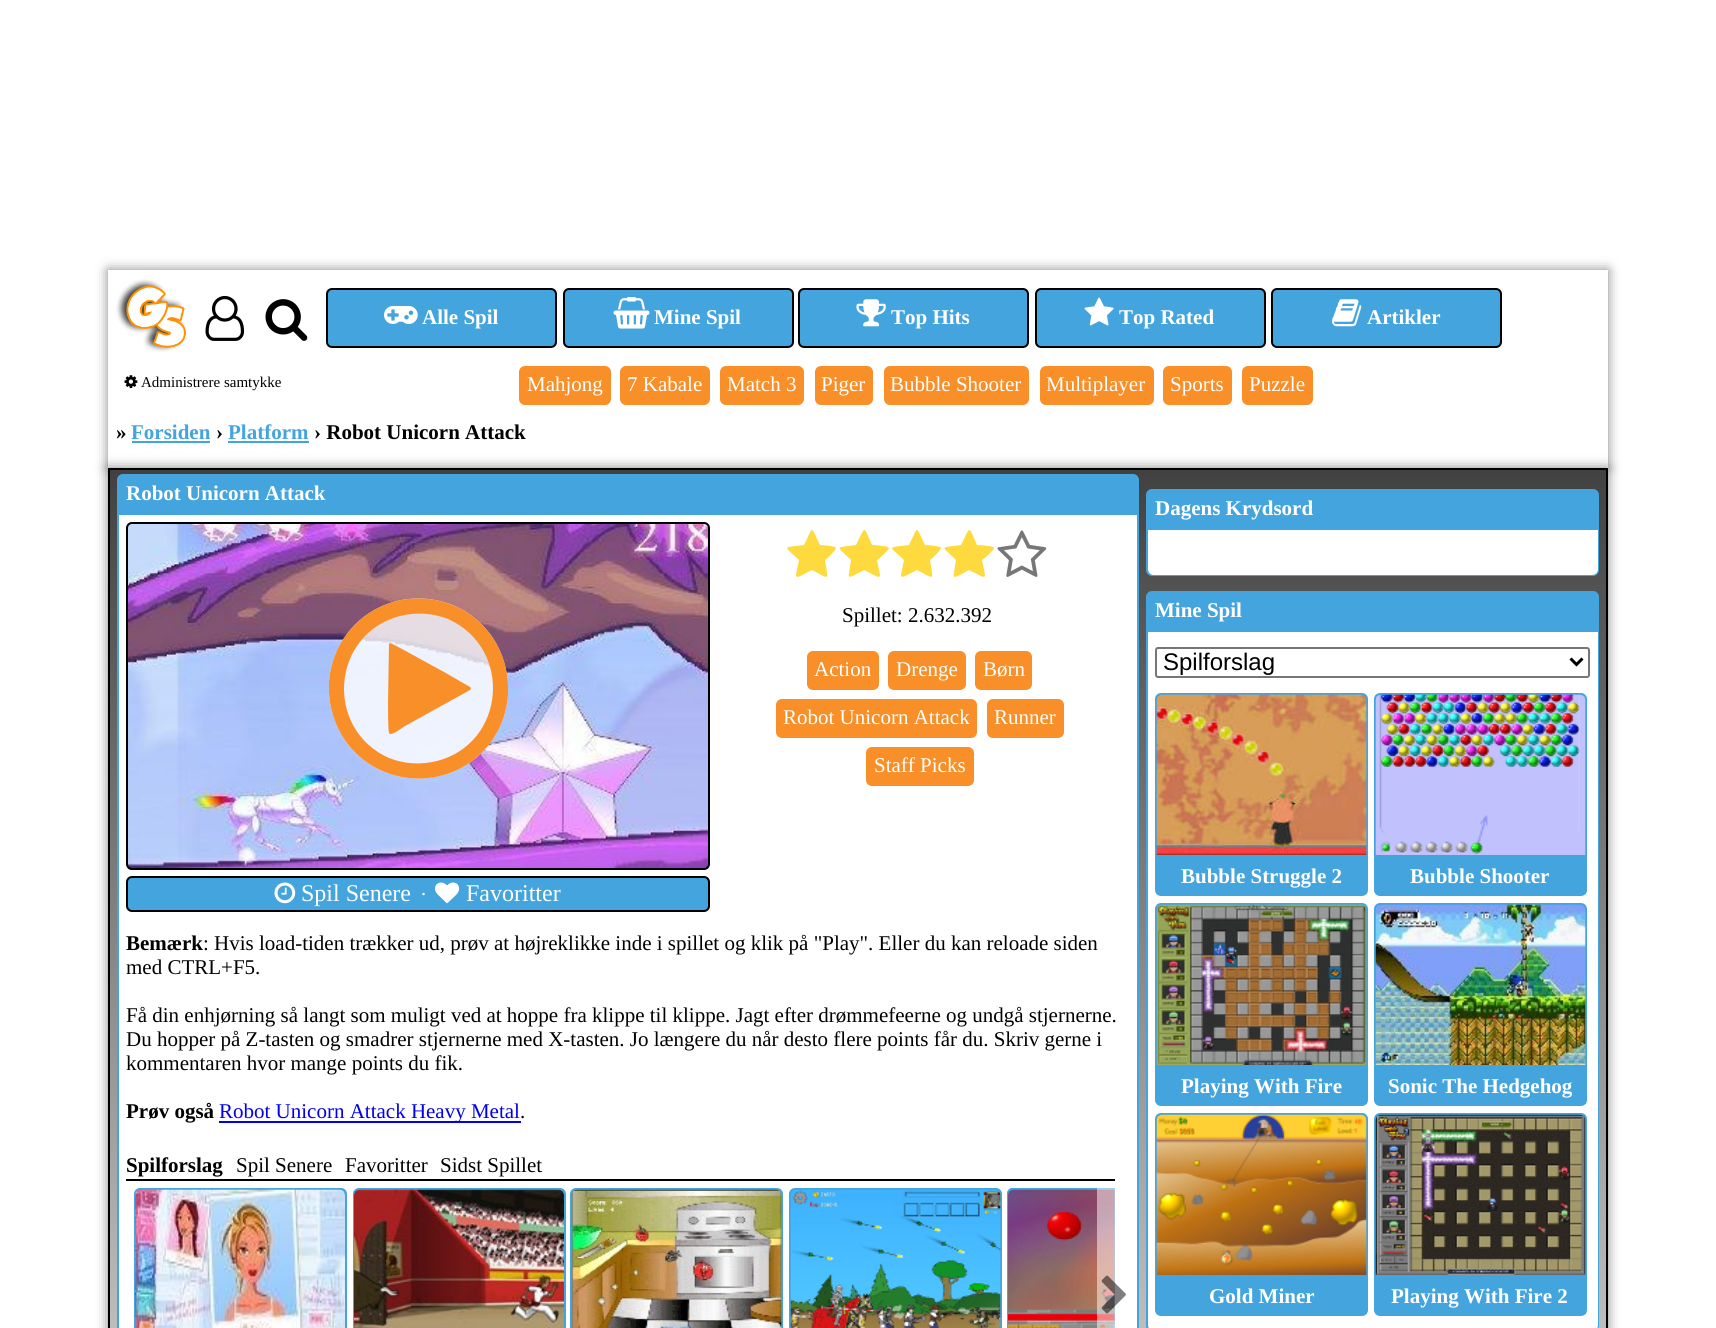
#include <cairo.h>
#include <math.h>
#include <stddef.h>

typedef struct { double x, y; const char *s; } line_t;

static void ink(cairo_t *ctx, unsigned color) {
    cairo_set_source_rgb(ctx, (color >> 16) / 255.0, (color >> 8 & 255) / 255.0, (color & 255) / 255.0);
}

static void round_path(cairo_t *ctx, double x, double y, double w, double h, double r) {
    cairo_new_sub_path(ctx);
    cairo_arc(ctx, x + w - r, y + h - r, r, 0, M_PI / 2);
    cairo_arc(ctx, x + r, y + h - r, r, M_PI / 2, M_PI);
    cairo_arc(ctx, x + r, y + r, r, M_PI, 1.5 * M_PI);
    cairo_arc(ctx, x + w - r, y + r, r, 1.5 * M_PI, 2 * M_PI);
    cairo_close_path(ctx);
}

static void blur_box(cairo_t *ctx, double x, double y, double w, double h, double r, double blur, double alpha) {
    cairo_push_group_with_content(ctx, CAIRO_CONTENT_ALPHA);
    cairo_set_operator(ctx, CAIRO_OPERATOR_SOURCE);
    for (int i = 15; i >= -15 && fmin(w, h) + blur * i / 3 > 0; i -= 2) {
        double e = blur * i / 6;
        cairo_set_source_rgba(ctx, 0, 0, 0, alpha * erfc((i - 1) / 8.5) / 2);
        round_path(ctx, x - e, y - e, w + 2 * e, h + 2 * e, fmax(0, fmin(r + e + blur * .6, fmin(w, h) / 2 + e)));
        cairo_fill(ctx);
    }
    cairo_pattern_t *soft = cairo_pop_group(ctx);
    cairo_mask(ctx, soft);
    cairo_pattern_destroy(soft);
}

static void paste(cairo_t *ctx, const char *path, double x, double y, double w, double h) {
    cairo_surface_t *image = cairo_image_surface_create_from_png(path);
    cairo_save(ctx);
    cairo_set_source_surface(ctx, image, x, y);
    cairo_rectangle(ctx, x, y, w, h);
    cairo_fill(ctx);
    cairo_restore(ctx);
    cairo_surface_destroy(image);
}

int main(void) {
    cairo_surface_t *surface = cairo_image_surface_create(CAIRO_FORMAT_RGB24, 1716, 1328);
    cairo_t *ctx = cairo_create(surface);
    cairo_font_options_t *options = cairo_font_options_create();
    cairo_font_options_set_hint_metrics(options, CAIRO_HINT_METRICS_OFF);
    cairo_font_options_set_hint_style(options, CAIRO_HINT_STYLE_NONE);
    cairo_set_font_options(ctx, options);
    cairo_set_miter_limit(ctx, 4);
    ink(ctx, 0xFFFFFF);
    cairo_paint(ctx);
    cairo_save(ctx);
    cairo_set_fill_rule(ctx, CAIRO_FILL_RULE_EVEN_ODD);
    cairo_new_path(ctx);
    cairo_move_to(ctx, 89, 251);
    cairo_line_to(ctx, 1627, 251);
    cairo_line_to(ctx, 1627, 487);
    cairo_line_to(ctx, 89, 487);
    cairo_close_path(ctx);
    cairo_move_to(ctx, 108, 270);
    cairo_line_to(ctx, 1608, 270);
    cairo_line_to(ctx, 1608, 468);
    cairo_line_to(ctx, 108, 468);
    cairo_close_path(ctx);
    cairo_clip(ctx);
    ink(ctx, 0x666666);
    blur_box(ctx, 108, 270, 1500, 198, 0, 6, 0.8);
    cairo_restore(ctx);
    paste(ctx, "media/1.png", 116, 279, 70, 73);
    paste(ctx, "media/2.png", 205, 295, 40, 46);
    paste(ctx, "media/3.png", 265, 299, 43, 42);
    paste(ctx, "media/4.png", 124, 375, 14, 14);
    cairo_select_font_face(ctx, "Liberation Serif", CAIRO_FONT_SLANT_NORMAL, CAIRO_FONT_WEIGHT_NORMAL);
    cairo_set_font_size(ctx, 15);
    ink(ctx, 0x000000);
    cairo_move_to(ctx, 141, 387);
    cairo_show_text(ctx, "Administrere samtykke");
    ink(ctx, 0x44A4DE);
    round_path(ctx, 327, 289, 229, 58, 5);
    cairo_fill_preserve(ctx);
    ink(ctx, 0x000000);
    cairo_stroke(ctx);
    paste(ctx, "media/5.png", 384, 306, 34, 18);
    cairo_select_font_face(ctx, "Liberation Serif", CAIRO_FONT_SLANT_NORMAL, CAIRO_FONT_WEIGHT_BOLD);
    cairo_set_font_size(ctx, 21);
    ink(ctx, 0xFFFFFF);
    cairo_move_to(ctx, 422, 324);
    cairo_show_text(ctx, "Alle Spil");
    ink(ctx, 0x44A4DE);
    round_path(ctx, 564, 289, 229, 58, 5);
    cairo_fill_preserve(ctx);
    ink(ctx, 0x000000);
    cairo_stroke(ctx);
    paste(ctx, "media/6.png", 613, 297, 37, 32);
    ink(ctx, 0xFFFFFF);
    cairo_move_to(ctx, 654, 324);
    cairo_show_text(ctx, "Mine Spil");
    ink(ctx, 0x44A4DE);
    round_path(ctx, 799, 289, 229, 58, 5);
    cairo_fill_preserve(ctx);
    ink(ctx, 0x000000);
    cairo_stroke(ctx);
    paste(ctx, "media/7.png", 856, 299, 30, 28);
    ink(ctx, 0xFFFFFF);
    cairo_move_to(ctx, 891, 324);
    cairo_show_text(ctx, "Top Hits");
    ink(ctx, 0x44A4DE);
    round_path(ctx, 1036, 289, 229, 58, 5);
    cairo_fill_preserve(ctx);
    ink(ctx, 0x000000);
    cairo_stroke(ctx);
    paste(ctx, "media/8.png", 1084, 297, 30, 29);
    ink(ctx, 0xFFFFFF);
    cairo_move_to(ctx, 1119, 324);
    cairo_show_text(ctx, "Top Rated");
    ink(ctx, 0x44A4DE);
    round_path(ctx, 1272, 289, 229, 58, 5);
    cairo_fill_preserve(ctx);
    ink(ctx, 0x000000);
    cairo_stroke(ctx);
    paste(ctx, "media/9.png", 1332, 299, 30, 28);
    ink(ctx, 0xFFFFFF);
    cairo_move_to(ctx, 1367, 324);
    cairo_show_text(ctx, "Artikler");
    ink(ctx, 0xF98F28);
    round_path(ctx, 519, 366, 92, 39, 6);
    cairo_fill(ctx);
    cairo_select_font_face(ctx, "Liberation Serif", CAIRO_FONT_SLANT_NORMAL, CAIRO_FONT_WEIGHT_NORMAL);
    ink(ctx, 0xFFFFFF);
    cairo_move_to(ctx, 527, 391);
    cairo_show_text(ctx, "Mahjong");
    ink(ctx, 0xF98F28);
    round_path(ctx, 620, 366, 90, 39, 6);
    cairo_fill(ctx);
    ink(ctx, 0xFFFFFF);
    cairo_move_to(ctx, 627, 391);
    cairo_show_text(ctx, "7 Kabale");
    ink(ctx, 0xF98F28);
    round_path(ctx, 720, 366, 84, 39, 6);
    cairo_fill(ctx);
    ink(ctx, 0xFFFFFF);
    cairo_move_to(ctx, 727, 391);
    cairo_show_text(ctx, "Match 3");
    ink(ctx, 0xF98F28);
    round_path(ctx, 815, 366, 58, 39, 6);
    cairo_fill(ctx);
    ink(ctx, 0xFFFFFF);
    cairo_move_to(ctx, 821, 391);
    cairo_show_text(ctx, "Piger");
    ink(ctx, 0xF98F28);
    round_path(ctx, 884, 366, 145, 39, 6);
    cairo_fill(ctx);
    ink(ctx, 0xFFFFFF);
    cairo_move_to(ctx, 890, 391);
    cairo_show_text(ctx, "Bubble Shooter");
    ink(ctx, 0xF98F28);
    round_path(ctx, 1040, 366, 114, 39, 6);
    cairo_fill(ctx);
    ink(ctx, 0xFFFFFF);
    cairo_move_to(ctx, 1046, 391);
    cairo_show_text(ctx, "Multiplayer");
    ink(ctx, 0xF98F28);
    round_path(ctx, 1163, 366, 69, 39, 6);
    cairo_fill(ctx);
    ink(ctx, 0xFFFFFF);
    cairo_move_to(ctx, 1170, 391);
    cairo_show_text(ctx, "Sports");
    ink(ctx, 0xF98F28);
    round_path(ctx, 1242, 366, 71, 39, 6);
    cairo_fill(ctx);
    ink(ctx, 0xFFFFFF);
    cairo_move_to(ctx, 1249, 391);
    cairo_show_text(ctx, "Puzzle");
    cairo_select_font_face(ctx, "Liberation Serif", CAIRO_FONT_SLANT_NORMAL, CAIRO_FONT_WEIGHT_BOLD);
    ink(ctx, 0x000000);
    cairo_move_to(ctx, 116, 439);
    cairo_show_text(ctx, "»");
    ink(ctx, 0x44A4DE);
    cairo_move_to(ctx, 131, 439);
    cairo_show_text(ctx, "Forsiden");
    cairo_rectangle(ctx, 132, 441, 78, 2);
    cairo_fill(ctx);
    ink(ctx, 0x000000);
    cairo_move_to(ctx, 216, 439);
    cairo_show_text(ctx, "›");
    ink(ctx, 0x44A4DE);
    cairo_move_to(ctx, 228, 439);
    cairo_show_text(ctx, "Platform");
    cairo_rectangle(ctx, 228, 441, 81, 2);
    cairo_fill(ctx);
    ink(ctx, 0x000000);
    cairo_move_to(ctx, 314, 439);
    cairo_show_text(ctx, "› Robot Unicorn Attack");
    ink(ctx, 0x666666);
    blur_box(ctx, 108, 468, 1500, 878, 0, 6, 0.8);
    paste(ctx, "media/10.png", 110, 470, 1496, 858);
    cairo_rectangle(ctx, 109, 469, 1498, 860);
    ink(ctx, 0x000000);
    cairo_stroke(ctx);
    ink(ctx, 0x44A4DE);
    round_path(ctx, 118, 475, 1020, 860, 5);
    cairo_fill_preserve(ctx);
    cairo_stroke(ctx);
    ink(ctx, 0xFFFFFF);
    cairo_move_to(ctx, 126, 500);
    cairo_show_text(ctx, "Robot Unicorn Attack");
    cairo_rectangle(ctx, 119, 515, 1018, 813);
    cairo_fill(ctx);
    ink(ctx, 0xFFDA3F);
    cairo_new_path(ctx);
    cairo_move_to(ctx, 836, 548);
    cairo_curve_to(ctx, 836, 550, 827, 559, 825, 560);
    cairo_curve_to(ctx, 828, 581, 831, 580, 812, 570);
    cairo_curve_to(ctx, 792, 580, 795, 581, 799, 560);
    cairo_curve_to(ctx, 783, 545, 782, 548, 804, 545);
    cairo_curve_to(ctx, 814, 525, 810, 525, 820, 545);
    cairo_curve_to(ctx, 822, 545, 836, 546, 836, 548);
    cairo_close_path(ctx);
    cairo_fill(ctx);
    cairo_new_path(ctx);
    cairo_move_to(ctx, 889, 548);
    cairo_curve_to(ctx, 889, 550, 879, 559, 877, 560);
    cairo_curve_to(ctx, 881, 581, 884, 580, 864, 570);
    cairo_curve_to(ctx, 845, 580, 848, 581, 851, 560);
    cairo_curve_to(ctx, 836, 545, 834, 548, 856, 545);
    cairo_curve_to(ctx, 866, 525, 863, 525, 872, 545);
    cairo_curve_to(ctx, 875, 545, 889, 546, 889, 548);
    cairo_close_path(ctx);
    cairo_fill(ctx);
    cairo_new_path(ctx);
    cairo_move_to(ctx, 941, 548);
    cairo_curve_to(ctx, 941, 550, 932, 559, 930, 560);
    cairo_curve_to(ctx, 933, 581, 936, 580, 917, 570);
    cairo_curve_to(ctx, 897, 580, 900, 581, 904, 560);
    cairo_curve_to(ctx, 888, 545, 887, 548, 909, 545);
    cairo_curve_to(ctx, 919, 525, 915, 525, 925, 545);
    cairo_curve_to(ctx, 927, 545, 941, 546, 941, 548);
    cairo_close_path(ctx);
    cairo_fill(ctx);
    cairo_new_path(ctx);
    cairo_move_to(ctx, 994, 548);
    cairo_curve_to(ctx, 994, 550, 984, 559, 982, 560);
    cairo_curve_to(ctx, 986, 581, 989, 580, 969, 570);
    cairo_curve_to(ctx, 950, 580, 953, 581, 956, 560);
    cairo_curve_to(ctx, 941, 545, 939, 548, 961, 545);
    cairo_curve_to(ctx, 971, 525, 968, 525, 977, 545);
    cairo_curve_to(ctx, 980, 545, 994, 546, 994, 548);
    cairo_close_path(ctx);
    cairo_fill(ctx);
    paste(ctx, "media/11.png", 997, 530, 50, 47);
    cairo_select_font_face(ctx, "Liberation Serif", CAIRO_FONT_SLANT_NORMAL, CAIRO_FONT_WEIGHT_NORMAL);
    ink(ctx, 0x000000);
    cairo_move_to(ctx, 842, 622);
    cairo_show_text(ctx, "Spillet: 2.632.392");
    ink(ctx, 0xF98F28);
    round_path(ctx, 807, 651, 72, 39, 6);
    cairo_fill(ctx);
    ink(ctx, 0xFFFFFF);
    cairo_move_to(ctx, 814, 676);
    cairo_show_text(ctx, "Action");
    ink(ctx, 0xF98F28);
    round_path(ctx, 888, 651, 78, 39, 6);
    cairo_fill(ctx);
    ink(ctx, 0xFFFFFF);
    cairo_move_to(ctx, 896, 676);
    cairo_show_text(ctx, "Drenge");
    ink(ctx, 0xF98F28);
    round_path(ctx, 975, 651, 57, 39, 6);
    cairo_fill(ctx);
    ink(ctx, 0xFFFFFF);
    cairo_move_to(ctx, 983, 676);
    cairo_show_text(ctx, "Børn");
    ink(ctx, 0xF98F28);
    round_path(ctx, 776, 699, 201, 39, 6);
    cairo_fill(ctx);
    ink(ctx, 0xFFFFFF);
    cairo_move_to(ctx, 783, 724);
    cairo_show_text(ctx, "Robot Unicorn Attack");
    ink(ctx, 0xF98F28);
    round_path(ctx, 987, 699, 77, 39, 6);
    cairo_fill(ctx);
    ink(ctx, 0xFFFFFF);
    cairo_move_to(ctx, 994, 724);
    cairo_show_text(ctx, "Runner");
    ink(ctx, 0xF98F28);
    round_path(ctx, 866, 747, 108, 39, 6);
    cairo_fill(ctx);
    ink(ctx, 0xFFFFFF);
    cairo_move_to(ctx, 874, 772);
    cairo_show_text(ctx, "Staff Picks");
    paste(ctx, "media/12.png", 127, 523, 581, 347);
    round_path(ctx, 127, 523, 582, 346, 5);
    ink(ctx, 0x000000);
    cairo_stroke(ctx);
    cairo_set_source_rgba(ctx, 1, 1, 1, 0.8);
    cairo_new_path(ctx);
    cairo_move_to(ctx, 496, 643);
    cairo_curve_to(ctx, 505, 659, 509, 677, 508, 695);
    cairo_curve_to(ctx, 507, 710, 502, 726, 493, 739);
    cairo_curve_to(ctx, 456, 794, 374, 791, 341, 734);
    cairo_curve_to(ctx, 332, 718, 328, 700, 329, 682);
    cairo_curve_to(ctx, 330, 667, 335, 651, 344, 638);
    cairo_curve_to(ctx, 381, 583, 463, 586, 496, 643);
    cairo_close_path(ctx);
    cairo_fill(ctx);
    ink(ctx, 0xF98F28);
    cairo_new_path(ctx);
    cairo_move_to(ctx, 448, 619);
    cairo_curve_to(ctx, 433, 613, 416, 612, 400, 616);
    cairo_curve_to(ctx, 331, 634, 324, 729, 389, 758);
    cairo_curve_to(ctx, 404, 764, 421, 765, 437, 761);
    cairo_curve_to(ctx, 506, 743, 513, 648, 448, 619);
    cairo_close_path(ctx);
    cairo_move_to(ctx, 496, 643);
    cairo_curve_to(ctx, 505, 659, 509, 677, 508, 695);
    cairo_curve_to(ctx, 507, 710, 502, 726, 493, 739);
    cairo_curve_to(ctx, 456, 794, 374, 791, 341, 734);
    cairo_curve_to(ctx, 332, 718, 328, 700, 329, 682);
    cairo_curve_to(ctx, 330, 667, 335, 651, 344, 638);
    cairo_curve_to(ctx, 381, 583, 463, 586, 496, 643);
    cairo_close_path(ctx);
    cairo_fill(ctx);
    cairo_new_path(ctx);
    cairo_move_to(ctx, 470, 690);
    cairo_line_to(ctx, 405, 726);
    cairo_curve_to(ctx, 403, 727, 391, 737, 389, 733);
    cairo_curve_to(ctx, 388, 731, 388, 706, 388, 703);
    cairo_line_to(ctx, 389, 644);
    cairo_line_to(ctx, 390, 643);
    cairo_curve_to(ctx, 392, 643, 438, 669, 444, 672);
    cairo_line_to(ctx, 470, 687);
    cairo_line_to(ctx, 471, 688);
    cairo_curve_to(ctx, 471, 689, 470, 690, 470, 690);
    cairo_close_path(ctx);
    cairo_fill(ctx);
    ink(ctx, 0x44A4DE);
    round_path(ctx, 127, 877, 582, 34, 5);
    cairo_fill_preserve(ctx);
    ink(ctx, 0x000000);
    cairo_stroke(ctx);
    paste(ctx, "media/13.png", 274, 882, 22, 22);
    cairo_set_font_size(ctx, 24);
    ink(ctx, 0xFFFFFF);
    cairo_move_to(ctx, 301, 901);
    cairo_show_text(ctx, "Spil Senere");
    cairo_set_font_size(ctx, 21);
    cairo_move_to(ctx, 420, 901);
    cairo_show_text(ctx, "·");
    paste(ctx, "media/14.png", 435, 882, 25, 22);
    cairo_set_font_size(ctx, 24);
    cairo_move_to(ctx, 466, 901);
    cairo_show_text(ctx, "Favoritter");
    cairo_select_font_face(ctx, "Liberation Serif", CAIRO_FONT_SLANT_NORMAL, CAIRO_FONT_WEIGHT_BOLD);
    cairo_set_font_size(ctx, 21);
    ink(ctx, 0x000000);
    cairo_move_to(ctx, 126, 950);
    cairo_show_text(ctx, "Bemærk");
    cairo_select_font_face(ctx, "Liberation Serif", CAIRO_FONT_SLANT_NORMAL, CAIRO_FONT_WEIGHT_NORMAL);
    {
        static const line_t items[] = {
            {203, 950, ": Hvis load-tiden trækker ud, prøv at højreklikke inde i spillet og klik på \"Play\". Eller du kan reloade siden"},
            {126, 974, "med CTRL+F5."},
            {126, 1022, "Få din enhjørning så langt som muligt ved at hoppe fra klippe til klippe. Jagt efter drømmefeerne og undgå stjernerne."},
            {126, 1046, "Du hopper på Z-tasten og smadrer stjernerne med X-tasten. Jo længere du når desto flere points får du. Skriv gerne i"},
            {126, 1070, "kommentaren hvor mange points du fik."},
        };
        for (size_t i = 0; i < sizeof items / sizeof *items; i++) {
            cairo_move_to(ctx, items[i].x, items[i].y);
            cairo_show_text(ctx, items[i].s);
        }
    }
    cairo_select_font_face(ctx, "Liberation Serif", CAIRO_FONT_SLANT_NORMAL, CAIRO_FONT_WEIGHT_BOLD);
    cairo_move_to(ctx, 126, 1118);
    cairo_show_text(ctx, "Prøv også");
    ink(ctx, 0x0000EE);
    cairo_rectangle(ctx, 219, 1121, 302, 2);
    cairo_fill(ctx);
    cairo_select_font_face(ctx, "Liberation Serif", CAIRO_FONT_SLANT_NORMAL, CAIRO_FONT_WEIGHT_NORMAL);
    cairo_move_to(ctx, 219, 1118);
    cairo_show_text(ctx, "Robot Unicorn Attack Heavy Metal");
    ink(ctx, 0x000000);
    cairo_move_to(ctx, 520, 1118);
    cairo_show_text(ctx, ".");
    cairo_rectangle(ctx, 126, 1179, 989, 2);
    cairo_fill(ctx);
    cairo_select_font_face(ctx, "Liberation Serif", CAIRO_FONT_SLANT_NORMAL, CAIRO_FONT_WEIGHT_BOLD);
    cairo_move_to(ctx, 126, 1172);
    cairo_show_text(ctx, "Spilforslag");
    cairo_select_font_face(ctx, "Liberation Serif", CAIRO_FONT_SLANT_NORMAL, CAIRO_FONT_WEIGHT_NORMAL);
    {
        static const line_t items[] = {
            {236, 1172, "Spil Senere"},
            {345, 1172, "Favoritter"},
            {440, 1172, "Sidst Spillet"},
        };
        for (size_t i = 0; i < sizeof items / sizeof *items; i++) {
            cairo_move_to(ctx, items[i].x, items[i].y);
            cairo_show_text(ctx, items[i].s);
        }
    }
    ink(ctx, 0x44A4DE);
    round_path(ctx, 135, 1189, 211, 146, 5);
    cairo_fill_preserve(ctx);
    cairo_stroke(ctx);
    paste(ctx, "media/15.png", 135, 1189, 210, 139);
    round_path(ctx, 354, 1189, 211, 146, 5);
    cairo_fill_preserve(ctx);
    cairo_stroke(ctx);
    paste(ctx, "media/16.png", 354, 1189, 210, 139);
    round_path(ctx, 571, 1189, 211, 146, 5);
    cairo_fill_preserve(ctx);
    cairo_stroke(ctx);
    paste(ctx, "media/17.png", 571, 1189, 211, 139);
    round_path(ctx, 790, 1189, 211, 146, 5);
    cairo_fill_preserve(ctx);
    cairo_stroke(ctx);
    paste(ctx, "media/18.png", 790, 1189, 211, 139);
    cairo_new_path(ctx);
    cairo_move_to(ctx, 1013, 1188);
    cairo_line_to(ctx, 1115, 1188);
    cairo_line_to(ctx, 1115, 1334);
    cairo_line_to(ctx, 1013, 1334);
    cairo_curve_to(ctx, 1009.5, 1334, 1007, 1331.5, 1007, 1328);
    cairo_line_to(ctx, 1007, 1194);
    cairo_curve_to(ctx, 1007, 1190.5, 1009.5, 1188, 1013, 1188);
    cairo_close_path(ctx);
    cairo_fill(ctx);
    cairo_save(ctx);
    cairo_rectangle(ctx, 126, 1181, 989, 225);
    cairo_clip(ctx);
    round_path(ctx, 1008, 1189, 211, 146, 5);
    cairo_stroke(ctx);
    cairo_restore(ctx);
    paste(ctx, "media/19.png", 1008, 1189, 107, 139);
    cairo_set_source_rgba(ctx, 1, 1, 1, 0.5);
    cairo_rectangle(ctx, 1097, 1188, 18, 140);
    cairo_fill(ctx);
    paste(ctx, "media/20.png", 1101, 1275, 25, 39);
    ink(ctx, 0x44A4DE);
    round_path(ctx, 1147, 490, 451, 85, 5);
    cairo_fill_preserve(ctx);
    cairo_stroke(ctx);
    cairo_select_font_face(ctx, "Liberation Serif", CAIRO_FONT_SLANT_NORMAL, CAIRO_FONT_WEIGHT_BOLD);
    ink(ctx, 0xFFFFFF);
    cairo_move_to(ctx, 1155, 515);
    cairo_show_text(ctx, "Dagens Krydsord");
    cairo_new_path(ctx);
    cairo_move_to(ctx, 1148, 530);
    cairo_line_to(ctx, 1598, 530);
    cairo_line_to(ctx, 1598, 569);
    cairo_curve_to(ctx, 1598, 572.5, 1595.5, 575, 1592, 575);
    cairo_line_to(ctx, 1154, 575);
    cairo_curve_to(ctx, 1150.5, 575, 1148, 572.5, 1148, 569);
    cairo_close_path(ctx);
    cairo_fill(ctx);
    ink(ctx, 0x44A4DE);
    round_path(ctx, 1147, 592, 451, 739, 5);
    cairo_fill_preserve(ctx);
    cairo_stroke(ctx);
    ink(ctx, 0xFFFFFF);
    cairo_move_to(ctx, 1155, 617);
    cairo_show_text(ctx, "Mine Spil");
    cairo_new_path(ctx);
    cairo_move_to(ctx, 1148, 632);
    cairo_line_to(ctx, 1598, 632);
    cairo_line_to(ctx, 1598, 1325);
    cairo_curve_to(ctx, 1598, 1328.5, 1595.5, 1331, 1592, 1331);
    cairo_line_to(ctx, 1154, 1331);
    cairo_curve_to(ctx, 1150.5, 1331, 1148, 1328.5, 1148, 1325);
    cairo_close_path(ctx);
    cairo_fill(ctx);
    round_path(ctx, 1156, 648, 433, 29, 2);
    ink(ctx, 0x767676);
    cairo_stroke(ctx);
    cairo_new_path(ctx);
    cairo_move_to(ctx, 1570.5, 658.5);
    cairo_line_to(ctx, 1576.5, 664.5);
    cairo_line_to(ctx, 1582.5, 658.5);
    ink(ctx, 0x000000);
    cairo_set_line_width(ctx, 3);
    cairo_stroke(ctx);
    cairo_select_font_face(ctx, "Liberation Sans", CAIRO_FONT_SLANT_NORMAL, CAIRO_FONT_WEIGHT_NORMAL);
    cairo_set_font_size(ctx, 24);
    cairo_move_to(ctx, 1163, 670);
    cairo_show_text(ctx, "Spilforslag");
    ink(ctx, 0x44A4DE);
    round_path(ctx, 1156, 694, 211, 201, 5);
    cairo_fill_preserve(ctx);
    cairo_set_line_width(ctx, 2);
    cairo_stroke(ctx);
    paste(ctx, "media/21.png", 1156, 694, 211, 161);
    cairo_rectangle(ctx, 1366, 893, 1, 1);
    cairo_fill(ctx);
    cairo_select_font_face(ctx, "Liberation Serif", CAIRO_FONT_SLANT_NORMAL, CAIRO_FONT_WEIGHT_BOLD);
    cairo_set_font_size(ctx, 21);
    ink(ctx, 0xFFFFFF);
    cairo_move_to(ctx, 1181, 883);
    cairo_show_text(ctx, "Bubble Struggle 2");
    ink(ctx, 0x44A4DE);
    round_path(ctx, 1375, 694, 211, 201, 5);
    cairo_fill_preserve(ctx);
    cairo_stroke(ctx);
    paste(ctx, "media/22.png", 1375, 694, 211, 161);
    cairo_rectangle(ctx, 1585, 893, 1, 1);
    cairo_fill(ctx);
    ink(ctx, 0xFFFFFF);
    cairo_move_to(ctx, 1410, 883);
    cairo_show_text(ctx, "Bubble Shooter");
    ink(ctx, 0x44A4DE);
    round_path(ctx, 1156, 904, 211, 201, 5);
    cairo_fill_preserve(ctx);
    cairo_stroke(ctx);
    paste(ctx, "media/23.png", 1156, 904, 211, 161);
    cairo_rectangle(ctx, 1366, 1103, 1, 1);
    cairo_fill(ctx);
    ink(ctx, 0xFFFFFF);
    cairo_move_to(ctx, 1181, 1093);
    cairo_show_text(ctx, "Playing With Fire");
    ink(ctx, 0x44A4DE);
    round_path(ctx, 1375, 904, 211, 201, 5);
    cairo_fill_preserve(ctx);
    cairo_stroke(ctx);
    paste(ctx, "media/24.png", 1375, 904, 211, 161);
    cairo_rectangle(ctx, 1585, 1103, 1, 1);
    cairo_fill(ctx);
    ink(ctx, 0xFFFFFF);
    cairo_move_to(ctx, 1388, 1093);
    cairo_show_text(ctx, "Sonic The Hedgehog");
    ink(ctx, 0x44A4DE);
    round_path(ctx, 1156, 1114, 211, 201, 5);
    cairo_fill_preserve(ctx);
    cairo_stroke(ctx);
    paste(ctx, "media/25.png", 1156, 1114, 211, 161);
    cairo_rectangle(ctx, 1366, 1313, 1, 1);
    cairo_fill(ctx);
    ink(ctx, 0xFFFFFF);
    cairo_move_to(ctx, 1209, 1303);
    cairo_show_text(ctx, "Gold Miner");
    ink(ctx, 0x44A4DE);
    round_path(ctx, 1375, 1114, 211, 201, 5);
    cairo_fill_preserve(ctx);
    cairo_stroke(ctx);
    paste(ctx, "media/26.png", 1375, 1114, 211, 161);
    cairo_rectangle(ctx, 1585, 1313, 1, 1);
    cairo_fill(ctx);
    ink(ctx, 0xFFFFFF);
    cairo_move_to(ctx, 1391, 1303);
    cairo_show_text(ctx, "Playing With Fire 2");
    cairo_surface_write_to_png(surface, "image.png");
    cairo_font_options_destroy(options);
    cairo_destroy(ctx);
    cairo_surface_destroy(surface);
    return 0;
}
